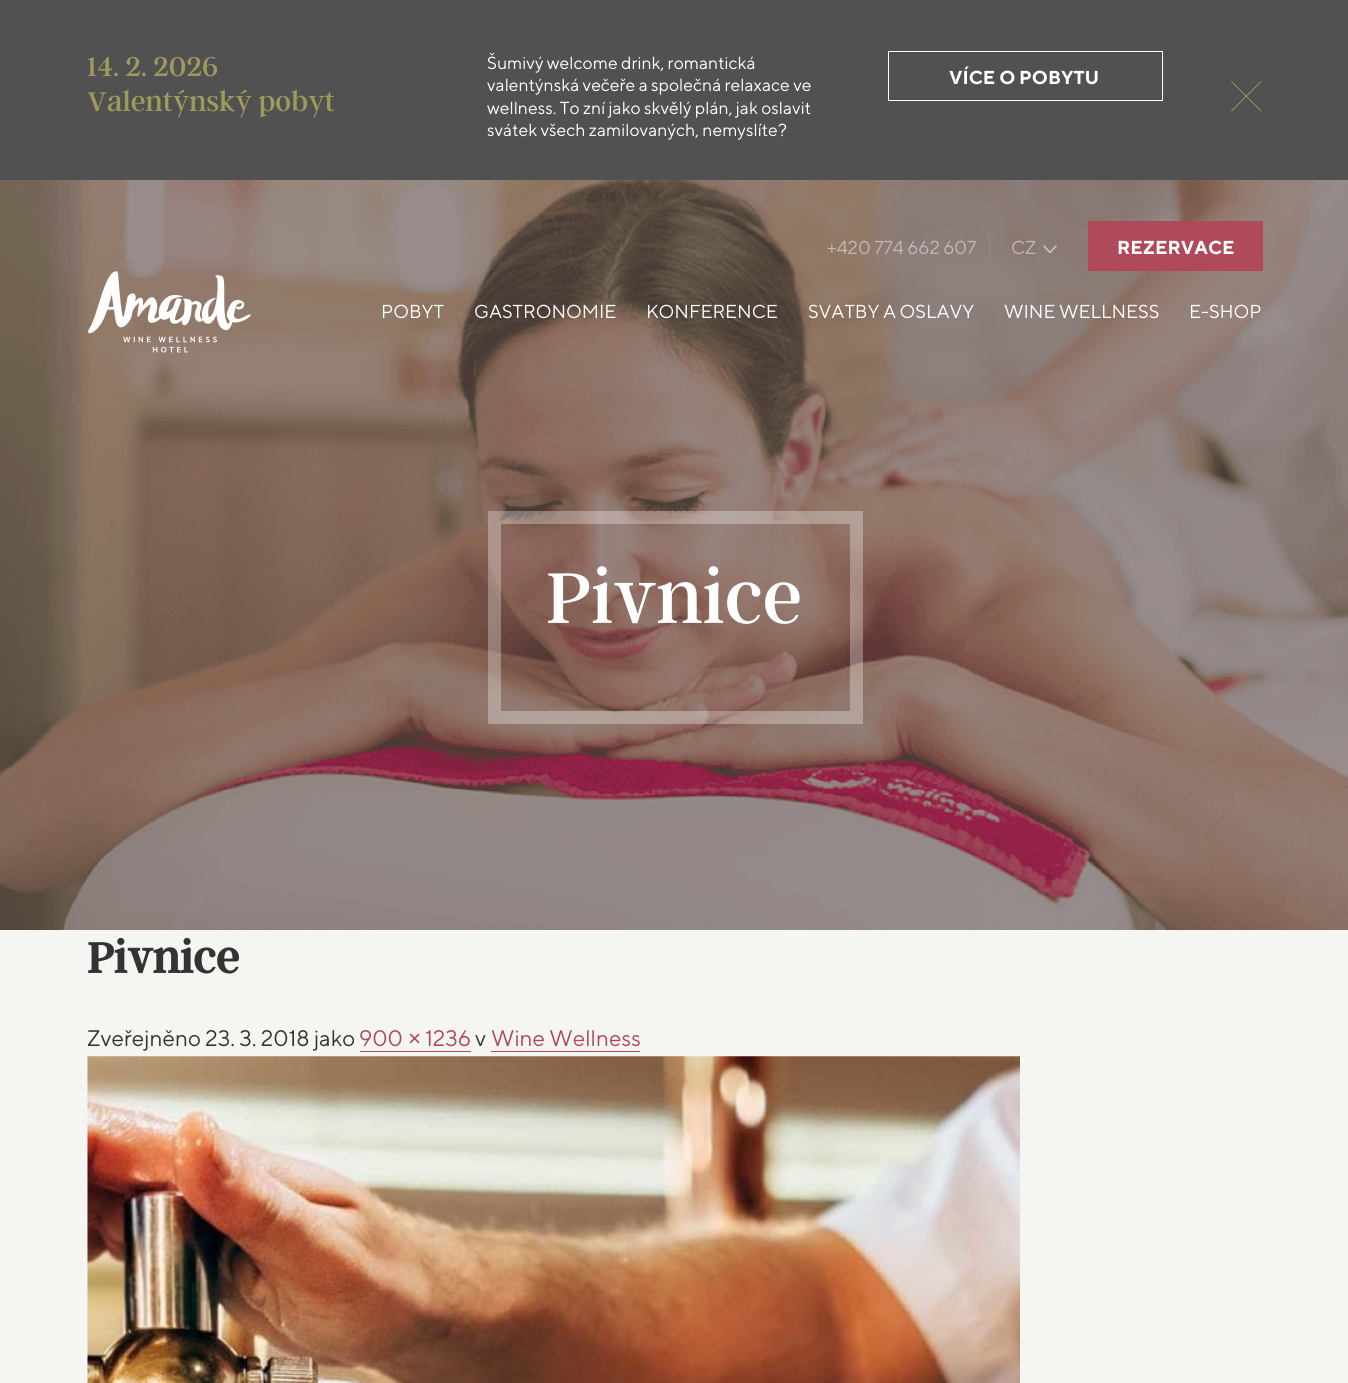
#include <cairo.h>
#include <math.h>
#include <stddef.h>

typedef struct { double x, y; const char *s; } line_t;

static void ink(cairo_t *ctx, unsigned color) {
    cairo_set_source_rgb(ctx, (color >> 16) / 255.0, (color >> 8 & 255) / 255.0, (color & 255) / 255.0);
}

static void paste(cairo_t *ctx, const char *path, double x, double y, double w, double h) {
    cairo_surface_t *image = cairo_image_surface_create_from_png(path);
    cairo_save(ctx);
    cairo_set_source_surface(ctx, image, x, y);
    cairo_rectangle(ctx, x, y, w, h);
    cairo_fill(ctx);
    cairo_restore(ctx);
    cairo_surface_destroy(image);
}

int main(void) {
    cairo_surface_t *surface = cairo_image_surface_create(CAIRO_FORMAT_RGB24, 1348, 1383);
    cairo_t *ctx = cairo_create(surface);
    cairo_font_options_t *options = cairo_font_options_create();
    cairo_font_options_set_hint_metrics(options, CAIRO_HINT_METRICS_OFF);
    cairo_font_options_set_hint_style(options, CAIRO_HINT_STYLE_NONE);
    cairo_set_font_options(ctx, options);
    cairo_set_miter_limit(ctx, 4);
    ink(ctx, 0xF5F5F2);
    cairo_paint(ctx);
    ink(ctx, 0x515151);
    cairo_rectangle(ctx, 0, 0, 1348, 180);
    cairo_fill(ctx);
    cairo_select_font_face(ctx, "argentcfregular", CAIRO_FONT_SLANT_NORMAL, CAIRO_FONT_WEIGHT_NORMAL);
    cairo_set_font_size(ctx, 30);
    ink(ctx, 0x9F9A5B);
    cairo_move_to(ctx, 87, 76);
    cairo_show_text(ctx, "14. 2. 2026");
    cairo_move_to(ctx, 87, 111);
    cairo_show_text(ctx, "Valentýnský pobyt");
    cairo_select_font_face(ctx, "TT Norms", CAIRO_FONT_SLANT_NORMAL, CAIRO_FONT_WEIGHT_NORMAL);
    cairo_set_font_size(ctx, 17.5);
    ink(ctx, 0xFFFFFF);
    {
        static const line_t items[] = {
            {487, 69, "Šumivý welcome drink, romantická"},
            {487, 91, "valentýnská večeře a společná relaxace ve"},
            {487, 114, "wellness. To zní jako skvělý plán, jak oslavit"},
            {487, 136, "svátek všech zamilovaných, nemyslíte?"},
        };
        for (size_t i = 0; i < sizeof items / sizeof *items; i++) {
            cairo_move_to(ctx, items[i].x, items[i].y);
            cairo_show_text(ctx, items[i].s);
        }
    }
    cairo_rectangle(ctx, 888.5, 51.5, 274, 49);
    cairo_set_line_width(ctx, 1);
    cairo_stroke(ctx);
    cairo_select_font_face(ctx, "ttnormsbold", CAIRO_FONT_SLANT_NORMAL, CAIRO_FONT_WEIGHT_BOLD);
    cairo_set_font_size(ctx, 18.75);
    cairo_move_to(ctx, 949, 84);
    cairo_show_text(ctx, "VÍCE O POBYTU");
    ink(ctx, 0xAFA96E);
    cairo_new_path(ctx);
    cairo_move_to(ctx, 1231, 81.5);
    cairo_line_to(ctx, 1231.5, 81);
    cairo_line_to(ctx, 1261.5, 111);
    cairo_line_to(ctx, 1261, 111.5);
    cairo_close_path(ctx);
    cairo_fill(ctx);
    cairo_new_path(ctx);
    cairo_move_to(ctx, 1261, 81);
    cairo_line_to(ctx, 1261.5, 81.5);
    cairo_line_to(ctx, 1231.5, 111.5);
    cairo_line_to(ctx, 1231, 111);
    cairo_close_path(ctx);
    cairo_fill(ctx);
    ink(ctx, 0x5E514D);
    cairo_rectangle(ctx, 0, 180, 1348, 750);
    cairo_fill(ctx);
    paste(ctx, "media/2.png", 0, 180, 1348, 750);
    cairo_select_font_face(ctx, "TT Norms", CAIRO_FONT_SLANT_NORMAL, CAIRO_FONT_WEIGHT_NORMAL);
    ink(ctx, 0xC5B7B8);
    cairo_move_to(ctx, 827, 254);
    cairo_show_text(ctx, "+420 774 662 607");
    cairo_set_source_rgba(ctx, 0.816, 0.769, 0.773, 0.18);
    cairo_rectangle(ctx, 989, 235, 1, 26);
    cairo_fill(ctx);
    ink(ctx, 0xC5B7B8);
    cairo_move_to(ctx, 1011, 254);
    cairo_show_text(ctx, "CZ");
    cairo_new_path(ctx);
    cairo_move_to(ctx, 1056, 246);
    cairo_line_to(ctx, 1050, 252.5);
    cairo_line_to(ctx, 1044, 246);
    ink(ctx, 0xD0C4C5);
    cairo_set_line_width(ctx, 1.5);
    cairo_set_line_cap(ctx, CAIRO_LINE_CAP_ROUND);
    cairo_set_line_join(ctx, CAIRO_LINE_JOIN_BEVEL);
    cairo_stroke(ctx);
    ink(ctx, 0xB04A5A);
    cairo_rectangle(ctx, 1088, 221, 175, 50);
    cairo_fill(ctx);
    cairo_select_font_face(ctx, "ttnormsbold", CAIRO_FONT_SLANT_NORMAL, CAIRO_FONT_WEIGHT_BOLD);
    ink(ctx, 0xFFFFFF);
    cairo_move_to(ctx, 1117, 254);
    cairo_show_text(ctx, "REZERVACE");
    paste(ctx, "media/1.png", 88, 271, 163, 82);
    cairo_select_font_face(ctx, "TT Norms", CAIRO_FONT_SLANT_NORMAL, CAIRO_FONT_WEIGHT_NORMAL);
    {
        static const line_t items[] = {
            {381, 318, "POBYT"},
            {474, 318, "GASTRONOMIE"},
            {646, 318, "KONFERENCE"},
            {808, 318, "SVATBY A OSLAVY"},
            {1004, 318, "WINE WELLNESS"},
            {1189, 318, "E-SHOP"},
        };
        for (size_t i = 0; i < sizeof items / sizeof *items; i++) {
            cairo_move_to(ctx, items[i].x, items[i].y);
            cairo_show_text(ctx, items[i].s);
        }
    }
    cairo_rectangle(ctx, 494.5, 517.5, 362, 200);
    cairo_set_source_rgba(ctx, 1, 1, 1, 0.3);
    cairo_set_line_width(ctx, 13);
    cairo_set_line_cap(ctx, CAIRO_LINE_CAP_BUTT);
    cairo_set_line_join(ctx, CAIRO_LINE_JOIN_MITER);
    cairo_stroke(ctx);
    cairo_select_font_face(ctx, "argentcfregular", CAIRO_FONT_SLANT_NORMAL, CAIRO_FONT_WEIGHT_NORMAL);
    cairo_set_font_size(ctx, 80);
    ink(ctx, 0xFFFFFF);
    cairo_move_to(ctx, 546, 623);
    cairo_show_text(ctx, "Pivnice");
    cairo_select_font_face(ctx, "argentcfregular", CAIRO_FONT_SLANT_NORMAL, CAIRO_FONT_WEIGHT_BOLD);
    cairo_set_font_size(ctx, 47.5);
    ink(ctx, 0x333333);
    cairo_move_to(ctx, 87, 973);
    cairo_show_text(ctx, "Pivnice");
    cairo_select_font_face(ctx, "TT Norms", CAIRO_FONT_SLANT_NORMAL, CAIRO_FONT_WEIGHT_NORMAL);
    cairo_set_font_size(ctx, 22.5);
    cairo_move_to(ctx, 87, 1046);
    cairo_show_text(ctx, "Zveřejněno 23. 3. 2018 jako");
    ink(ctx, 0xB04A5A);
    cairo_move_to(ctx, 359, 1046);
    cairo_show_text(ctx, "900");
    cairo_rectangle(ctx, 360, 1051, 111, 1);
    cairo_fill(ctx);
    cairo_select_font_face(ctx, "Liberation Sans", CAIRO_FONT_SLANT_NORMAL, CAIRO_FONT_WEIGHT_NORMAL);
    cairo_move_to(ctx, 408, 1046);
    cairo_show_text(ctx, "×");
    cairo_select_font_face(ctx, "TT Norms", CAIRO_FONT_SLANT_NORMAL, CAIRO_FONT_WEIGHT_NORMAL);
    cairo_move_to(ctx, 425, 1046);
    cairo_show_text(ctx, "1236");
    ink(ctx, 0x333333);
    cairo_move_to(ctx, 475, 1046);
    cairo_show_text(ctx, "v");
    ink(ctx, 0xB04A5A);
    cairo_move_to(ctx, 491, 1046);
    cairo_show_text(ctx, "Wine Wellness");
    cairo_rectangle(ctx, 491, 1051, 149, 1);
    cairo_fill(ctx);
    paste(ctx, "media/3.png", 87, 1056, 933, 327);
    cairo_surface_write_to_png(surface, "image.png");
    cairo_font_options_destroy(options);
    cairo_destroy(ctx);
    cairo_surface_destroy(surface);
    return 0;
}
